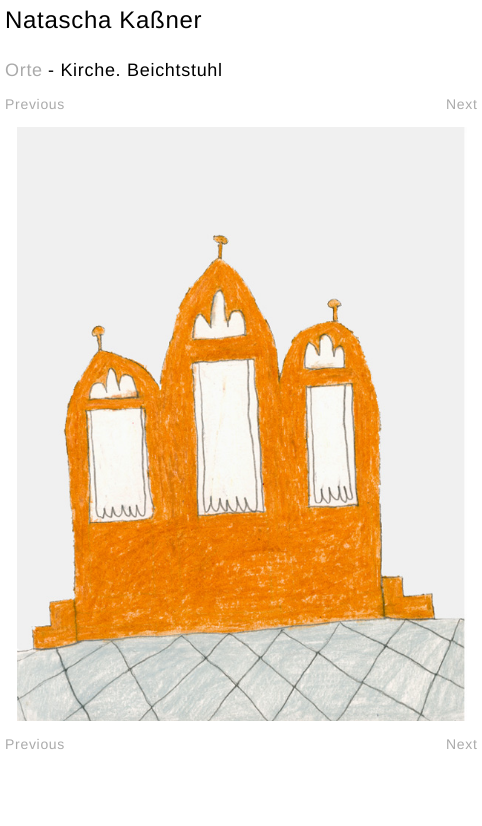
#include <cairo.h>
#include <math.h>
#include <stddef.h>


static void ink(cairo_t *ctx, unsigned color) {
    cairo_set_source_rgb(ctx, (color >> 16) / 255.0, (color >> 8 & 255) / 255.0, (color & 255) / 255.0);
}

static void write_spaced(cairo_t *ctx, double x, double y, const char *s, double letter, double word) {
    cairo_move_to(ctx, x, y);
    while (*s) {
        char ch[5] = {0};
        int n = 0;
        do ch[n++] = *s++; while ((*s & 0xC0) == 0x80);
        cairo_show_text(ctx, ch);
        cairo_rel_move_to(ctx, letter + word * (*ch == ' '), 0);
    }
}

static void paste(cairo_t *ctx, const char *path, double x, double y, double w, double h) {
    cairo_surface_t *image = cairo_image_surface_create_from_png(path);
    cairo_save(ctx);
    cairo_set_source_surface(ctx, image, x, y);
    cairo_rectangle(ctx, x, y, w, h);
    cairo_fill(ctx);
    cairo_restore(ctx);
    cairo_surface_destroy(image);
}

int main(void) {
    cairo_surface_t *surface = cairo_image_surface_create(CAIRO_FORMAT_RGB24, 482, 826);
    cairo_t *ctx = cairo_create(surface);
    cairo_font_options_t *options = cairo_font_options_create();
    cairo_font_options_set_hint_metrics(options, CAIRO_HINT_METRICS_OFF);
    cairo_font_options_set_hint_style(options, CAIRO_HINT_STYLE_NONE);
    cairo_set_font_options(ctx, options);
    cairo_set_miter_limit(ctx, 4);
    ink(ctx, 0xFFFFFF);
    cairo_paint(ctx);
    cairo_select_font_face(ctx, "Liberation Sans", CAIRO_FONT_SLANT_NORMAL, CAIRO_FONT_WEIGHT_NORMAL);
    cairo_set_font_size(ctx, 24);
    ink(ctx, 0x000000);
    write_spaced(ctx, 5, 28, "Natascha Kaßner", 0.7, 0);
    cairo_set_font_size(ctx, 18);
    ink(ctx, 0xAAAAAA);
    write_spaced(ctx, 5, 76, "Orte", 0.7, 0);
    ink(ctx, 0x000000);
    write_spaced(ctx, 48, 76, "- Kirche. Beichtstuhl", 0.7, 0);
    cairo_set_font_size(ctx, 14);
    ink(ctx, 0xAAAAAA);
    write_spaced(ctx, 5, 109, "Previous", 0.7, 0);
    write_spaced(ctx, 446, 109, "Next", 0.7, 0);
    paste(ctx, "media/1.png", 17, 127, 450, 594);
    write_spaced(ctx, 5, 749, "Previous", 0.7, 0);
    write_spaced(ctx, 446, 749, "Next", 0.7, 0);
    cairo_surface_write_to_png(surface, "image.png");
    cairo_font_options_destroy(options);
    cairo_destroy(ctx);
    cairo_surface_destroy(surface);
    return 0;
}
